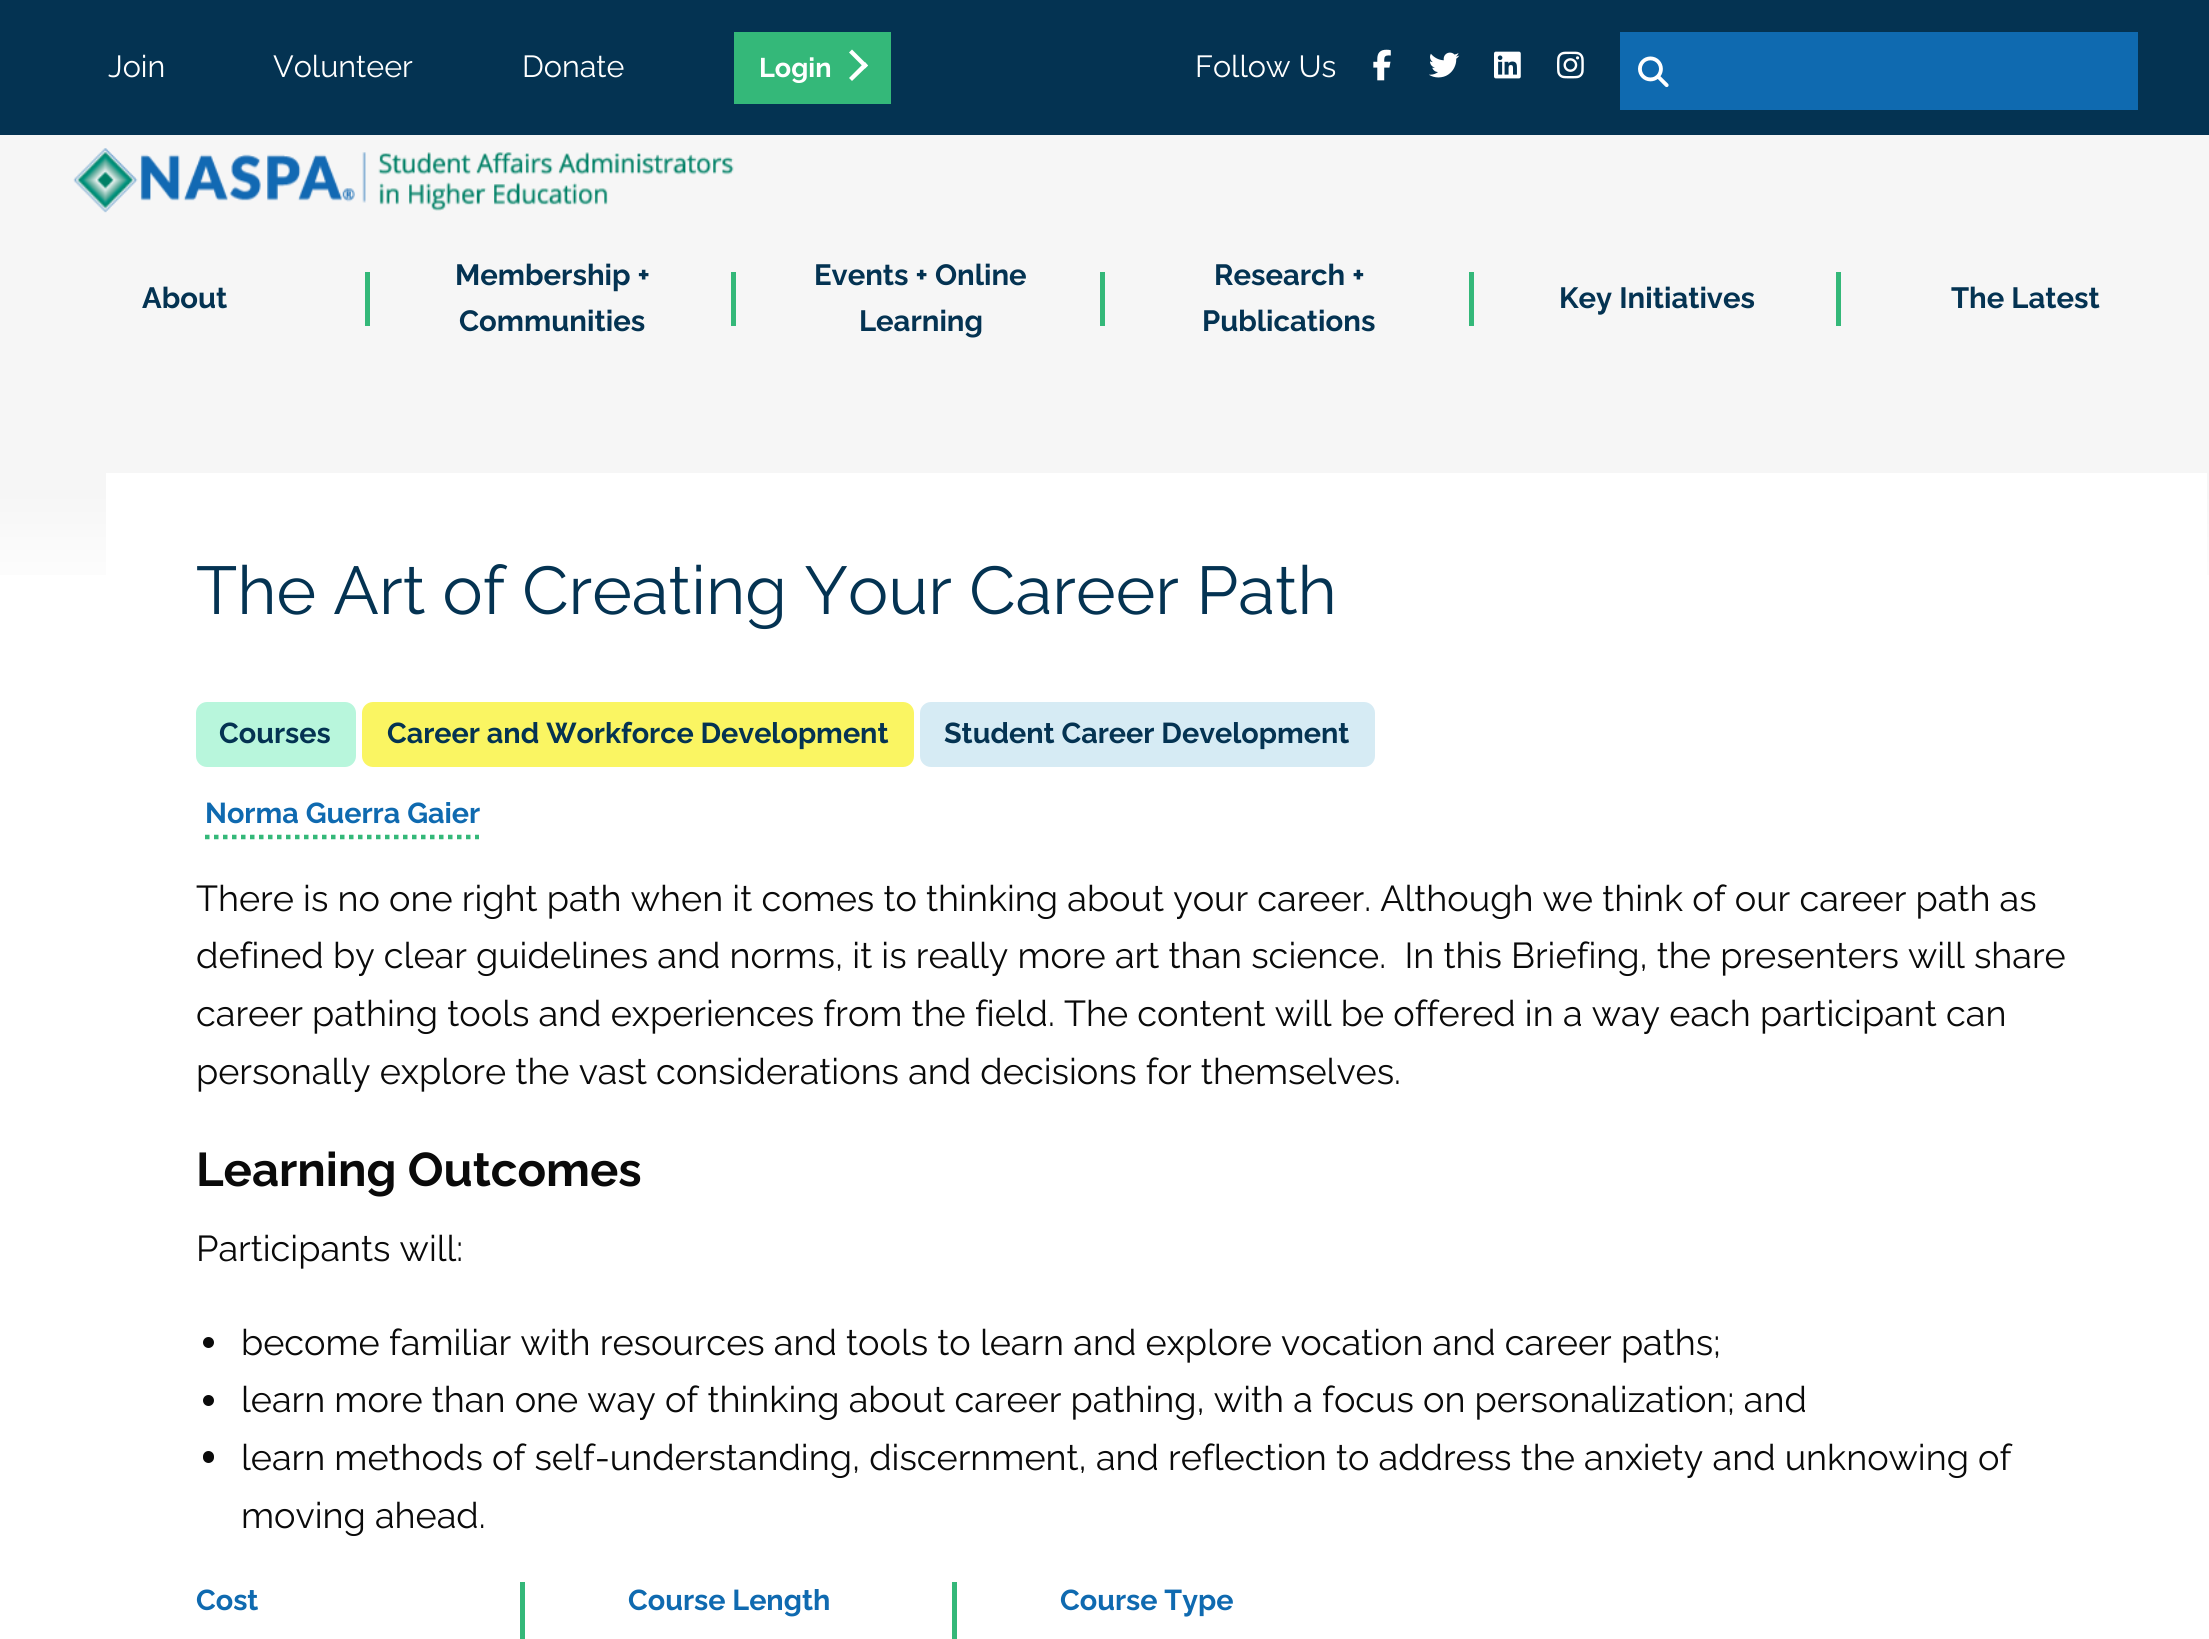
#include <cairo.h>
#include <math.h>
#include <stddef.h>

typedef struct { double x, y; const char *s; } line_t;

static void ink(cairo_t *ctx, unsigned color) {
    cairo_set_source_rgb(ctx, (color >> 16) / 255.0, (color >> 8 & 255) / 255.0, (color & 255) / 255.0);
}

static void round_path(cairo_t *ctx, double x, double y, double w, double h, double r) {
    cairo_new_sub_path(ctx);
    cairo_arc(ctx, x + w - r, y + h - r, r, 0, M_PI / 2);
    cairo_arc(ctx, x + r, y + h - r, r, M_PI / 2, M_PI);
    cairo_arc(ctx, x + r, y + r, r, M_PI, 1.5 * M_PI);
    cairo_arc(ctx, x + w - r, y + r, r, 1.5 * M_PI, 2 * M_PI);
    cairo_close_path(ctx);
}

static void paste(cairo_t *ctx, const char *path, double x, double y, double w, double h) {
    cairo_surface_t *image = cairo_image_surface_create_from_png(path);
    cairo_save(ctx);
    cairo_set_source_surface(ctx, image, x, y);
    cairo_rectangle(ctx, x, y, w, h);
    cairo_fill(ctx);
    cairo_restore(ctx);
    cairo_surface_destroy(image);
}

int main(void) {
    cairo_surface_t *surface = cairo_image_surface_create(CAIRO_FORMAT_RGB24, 2209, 1639);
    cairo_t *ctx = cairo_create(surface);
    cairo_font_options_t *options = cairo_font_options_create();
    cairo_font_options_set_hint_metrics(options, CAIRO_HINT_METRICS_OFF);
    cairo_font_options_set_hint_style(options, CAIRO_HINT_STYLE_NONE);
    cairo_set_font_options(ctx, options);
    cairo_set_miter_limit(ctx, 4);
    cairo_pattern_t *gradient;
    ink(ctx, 0xFFFFFF);
    cairo_paint(ctx);
    ink(ctx, 0x043352);
    cairo_rectangle(ctx, 0, 0, 2209, 135);
    cairo_fill(ctx);
    cairo_select_font_face(ctx, "Raleway", CAIRO_FONT_SLANT_NORMAL, CAIRO_FONT_WEIGHT_NORMAL);
    cairo_set_font_size(ctx, 30.5);
    ink(ctx, 0xFFFFFF);
    {
        static const line_t items[] = {
            {108, 77, "Join"},
            {273, 77, "Volunteer"},
            {522, 77, "Donate"},
        };
        for (size_t i = 0; i < sizeof items / sizeof *items; i++) {
            cairo_move_to(ctx, items[i].x, items[i].y);
            cairo_show_text(ctx, items[i].s);
        }
    }
    ink(ctx, 0x34B879);
    cairo_rectangle(ctx, 734, 32, 157, 72);
    cairo_fill(ctx);
    cairo_select_font_face(ctx, "Raleway", CAIRO_FONT_SLANT_NORMAL, CAIRO_FONT_WEIGHT_BOLD);
    cairo_set_font_size(ctx, 27);
    ink(ctx, 0xFFFFFF);
    cairo_move_to(ctx, 759, 77);
    cairo_show_text(ctx, "Login");
    cairo_new_path(ctx);
    cairo_move_to(ctx, 849, 52.5);
    cairo_line_to(ctx, 852, 49.5);
    cairo_line_to(ctx, 868, 65.5);
    cairo_line_to(ctx, 865, 68.5);
    cairo_close_path(ctx);
    cairo_fill(ctx);
    cairo_new_path(ctx);
    cairo_move_to(ctx, 849, 78);
    cairo_line_to(ctx, 865, 62);
    cairo_line_to(ctx, 868, 65.5);
    cairo_line_to(ctx, 852, 81);
    cairo_close_path(ctx);
    cairo_fill(ctx);
    cairo_select_font_face(ctx, "Raleway", CAIRO_FONT_SLANT_NORMAL, CAIRO_FONT_WEIGHT_NORMAL);
    cairo_set_font_size(ctx, 30.5);
    cairo_move_to(ctx, 1195, 77);
    cairo_show_text(ctx, "Follow Us");
    paste(ctx, "media/1.png", 1373, 49, 18, 32);
    paste(ctx, "media/2.png", 1429, 52, 31, 26);
    paste(ctx, "media/3.png", 1494, 51, 27, 28);
    paste(ctx, "media/4.png", 1557, 51, 27, 28);
    ink(ctx, 0x0F6AB0);
    cairo_rectangle(ctx, 1620, 32, 518, 78);
    cairo_fill(ctx);
    paste(ctx, "media/5.png", 1638, 56, 31, 32);
    ink(ctx, 0xF6F6F6);
    cairo_rectangle(ctx, 0, 135, 2209, 248);
    cairo_fill(ctx);
    paste(ctx, "media/6.png", 73, 148, 661, 65);
    cairo_select_font_face(ctx, "Raleway", CAIRO_FONT_SLANT_NORMAL, CAIRO_FONT_WEIGHT_BOLD);
    cairo_set_font_size(ctx, 29.25);
    ink(ctx, 0x043352);
    cairo_move_to(ctx, 142, 308);
    cairo_show_text(ctx, "About");
    ink(ctx, 0x34B879);
    cairo_rectangle(ctx, 365, 272, 5, 54);
    cairo_fill(ctx);
    ink(ctx, 0x043352);
    cairo_move_to(ctx, 455, 285);
    cairo_show_text(ctx, "Membership +");
    ink(ctx, 0x34B879);
    cairo_rectangle(ctx, 731, 272, 5, 54);
    cairo_fill(ctx);
    ink(ctx, 0x043352);
    cairo_move_to(ctx, 459, 331);
    cairo_show_text(ctx, "Communities");
    cairo_move_to(ctx, 814, 285);
    cairo_show_text(ctx, "Events + Online");
    ink(ctx, 0x34B879);
    cairo_rectangle(ctx, 1100, 272, 5, 54);
    cairo_fill(ctx);
    ink(ctx, 0x043352);
    cairo_move_to(ctx, 859, 331);
    cairo_show_text(ctx, "Learning");
    cairo_move_to(ctx, 1214, 285);
    cairo_show_text(ctx, "Research +");
    ink(ctx, 0x34B879);
    cairo_rectangle(ctx, 1469, 272, 5, 54);
    cairo_fill(ctx);
    ink(ctx, 0x043352);
    cairo_move_to(ctx, 1202, 331);
    cairo_show_text(ctx, "Publications");
    cairo_move_to(ctx, 1559, 308);
    cairo_show_text(ctx, "Key Initiatives");
    ink(ctx, 0x34B879);
    cairo_rectangle(ctx, 1836, 272, 5, 54);
    cairo_fill(ctx);
    ink(ctx, 0x043352);
    cairo_move_to(ctx, 1951, 308);
    cairo_show_text(ctx, "The Latest");
    gradient = cairo_pattern_create_linear(1105, 382, 1105, 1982);
    cairo_pattern_add_color_stop_rgba(gradient, 0, 0.965, 0.965, 0.965, 1);
    cairo_pattern_add_color_stop_rgba(gradient, 0.07, 0.965, 0.965, 0.965, 1);
    cairo_pattern_add_color_stop_rgba(gradient, 0.14, 1, 1, 1, 1);
    cairo_pattern_add_color_stop_rgba(gradient, 1, 1, 1, 1, 1);
    cairo_set_source(ctx, gradient);
    cairo_pattern_destroy(gradient);
    cairo_rectangle(ctx, 0, 383, 2209, 192);
    cairo_fill(ctx);
    ink(ctx, 0xFFFFFF);
    cairo_rectangle(ctx, 106, 473, 2101, 102);
    cairo_fill(ctx);
    cairo_select_font_face(ctx, "Raleway", CAIRO_FONT_SLANT_NORMAL, CAIRO_FONT_WEIGHT_NORMAL);
    cairo_set_font_size(ctx, 67.5);
    ink(ctx, 0x043352);
    cairo_move_to(ctx, 196, 614);
    cairo_show_text(ctx, "The Art of Creating Your Career Path");
    ink(ctx, 0xB8F6DC);
    round_path(ctx, 196, 702, 160, 65, 11);
    cairo_fill(ctx);
    cairo_select_font_face(ctx, "Raleway", CAIRO_FONT_SLANT_NORMAL, CAIRO_FONT_WEIGHT_BOLD);
    cairo_set_font_size(ctx, 28.75);
    ink(ctx, 0x043352);
    cairo_move_to(ctx, 219, 743);
    cairo_show_text(ctx, "Courses");
    ink(ctx, 0xFAF562);
    round_path(ctx, 362, 702, 552, 65, 11);
    cairo_fill(ctx);
    ink(ctx, 0x043352);
    cairo_move_to(ctx, 387, 743);
    cairo_show_text(ctx, "Career and Workforce Development");
    ink(ctx, 0xD6EBF4);
    round_path(ctx, 920, 702, 455, 65, 11);
    cairo_fill(ctx);
    ink(ctx, 0x043352);
    cairo_move_to(ctx, 944, 743);
    cairo_show_text(ctx, "Student Career Development");
    ink(ctx, 0x0F6AB0);
    cairo_move_to(ctx, 205, 823);
    cairo_show_text(ctx, "Norma Guerra Gaier");
    cairo_new_path(ctx);
    cairo_move_to(ctx, 205, 837);
    cairo_line_to(ctx, 479, 837);
    ink(ctx, 0x34B879);
    cairo_set_line_width(ctx, 4.5);
    cairo_set_dash(ctx, (double[]){4.5, 4.5}, 2, 0);
    cairo_stroke(ctx);
    cairo_select_font_face(ctx, "Raleway", CAIRO_FONT_SLANT_NORMAL, CAIRO_FONT_WEIGHT_NORMAL);
    cairo_set_font_size(ctx, 36);
    ink(ctx, 0x0A0A0A);
    {
        static const line_t items[] = {
            {196, 911, "There is no one right path when it comes to thinking about your career. Although we think of our career path as"},
            {196, 968, "defined by clear guidelines and norms, it is really more art than science.  In this Briefing, the presenters will share"},
            {196, 1026, "career pathing tools and experiences from the field. The content will be offered in a way each participant can"},
            {196, 1084, "personally explore the vast considerations and decisions for themselves."},
        };
        for (size_t i = 0; i < sizeof items / sizeof *items; i++) {
            cairo_move_to(ctx, items[i].x, items[i].y);
            cairo_show_text(ctx, items[i].s);
        }
    }
    cairo_select_font_face(ctx, "Raleway", CAIRO_FONT_SLANT_NORMAL, CAIRO_FONT_WEIGHT_BOLD);
    cairo_set_font_size(ctx, 47.25);
    cairo_move_to(ctx, 196, 1186);
    cairo_show_text(ctx, "Learning Outcomes");
    cairo_select_font_face(ctx, "Raleway", CAIRO_FONT_SLANT_NORMAL, CAIRO_FONT_WEIGHT_NORMAL);
    cairo_set_font_size(ctx, 36);
    cairo_move_to(ctx, 196, 1261);
    cairo_show_text(ctx, "Participants will:");
    cairo_new_path(ctx);
    cairo_arc(ctx, 208.5, 1342.5, 5.5, 0, 2 * M_PI);
    cairo_fill(ctx);
    cairo_move_to(ctx, 241, 1355);
    cairo_show_text(ctx, "become familiar with resources and tools to learn and explore vocation and career paths;");
    cairo_new_path(ctx);
    cairo_arc(ctx, 208.5, 1400.5, 5.5, 0, 2 * M_PI);
    cairo_fill(ctx);
    cairo_move_to(ctx, 241, 1412);
    cairo_show_text(ctx, "learn more than one way of thinking about career pathing, with a focus on personalization; and");
    round_path(ctx, 203, 1451, 11, 12, 5.5);
    cairo_fill(ctx);
    cairo_move_to(ctx, 241, 1470);
    cairo_show_text(ctx, "learn methods of self-understanding, discernment, and reflection to address the anxiety and unknowing of");
    cairo_move_to(ctx, 241, 1528);
    cairo_show_text(ctx, "moving ahead.");
    cairo_select_font_face(ctx, "Raleway", CAIRO_FONT_SLANT_NORMAL, CAIRO_FONT_WEIGHT_BOLD);
    cairo_set_font_size(ctx, 28.75);
    ink(ctx, 0x0F6AB0);
    cairo_move_to(ctx, 196, 1610);
    cairo_show_text(ctx, "Cost");
    ink(ctx, 0x34B879);
    cairo_rectangle(ctx, 520, 1582, 5, 57);
    cairo_fill(ctx);
    ink(ctx, 0x0F6AB0);
    cairo_move_to(ctx, 628, 1610);
    cairo_show_text(ctx, "Course Length");
    ink(ctx, 0x34B879);
    cairo_rectangle(ctx, 952, 1582, 5, 57);
    cairo_fill(ctx);
    ink(ctx, 0x0F6AB0);
    cairo_move_to(ctx, 1060, 1610);
    cairo_show_text(ctx, "Course Type");
    cairo_surface_write_to_png(surface, "image.png");
    cairo_font_options_destroy(options);
    cairo_destroy(ctx);
    cairo_surface_destroy(surface);
    return 0;
}
